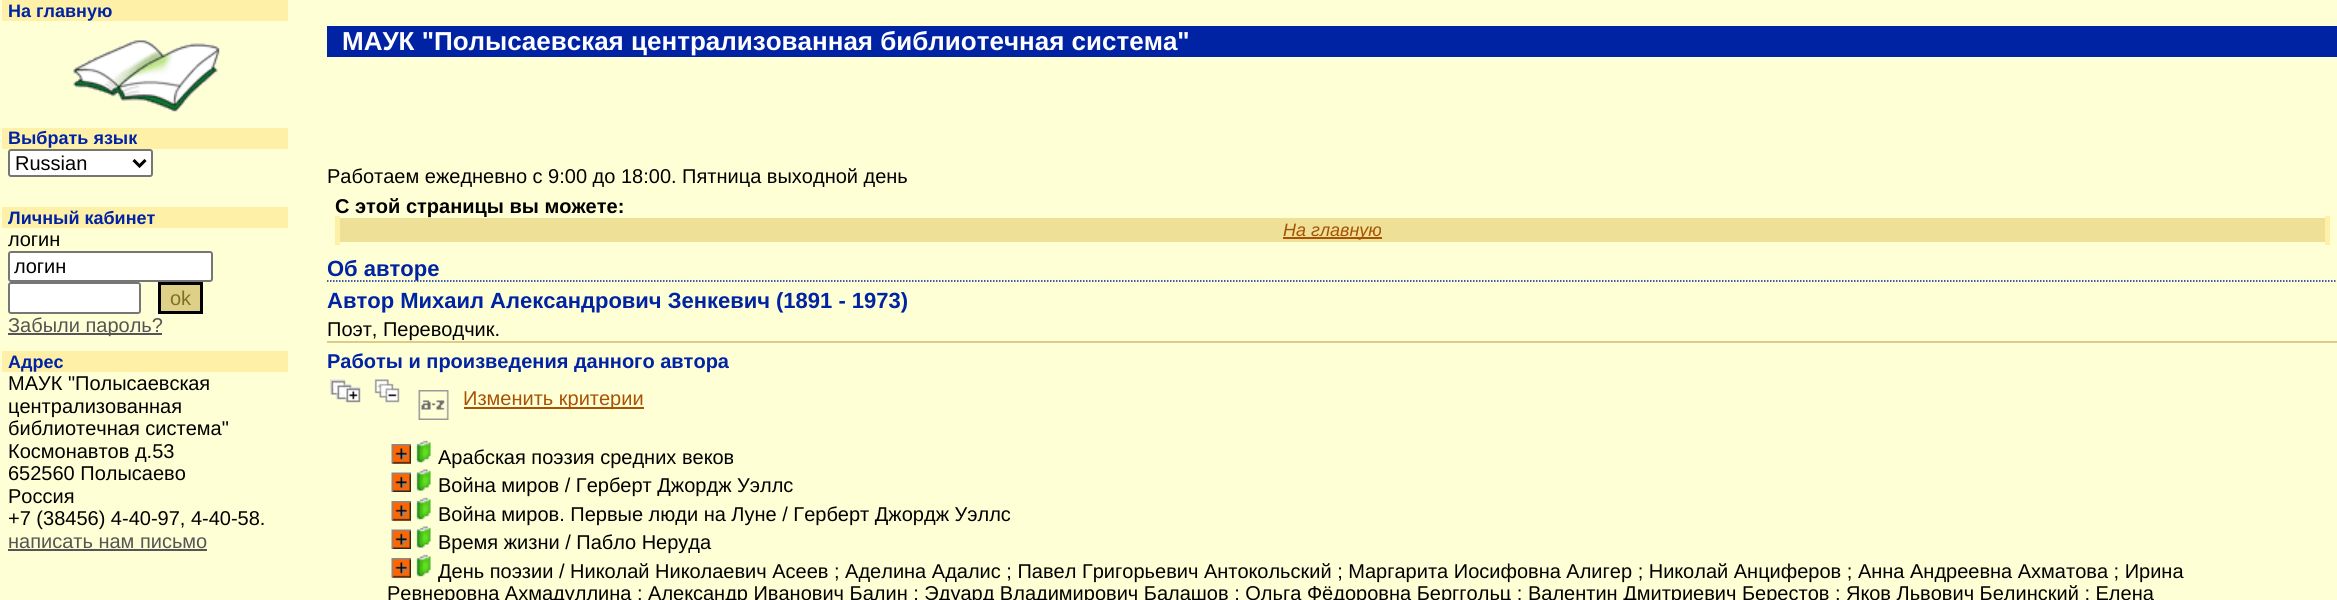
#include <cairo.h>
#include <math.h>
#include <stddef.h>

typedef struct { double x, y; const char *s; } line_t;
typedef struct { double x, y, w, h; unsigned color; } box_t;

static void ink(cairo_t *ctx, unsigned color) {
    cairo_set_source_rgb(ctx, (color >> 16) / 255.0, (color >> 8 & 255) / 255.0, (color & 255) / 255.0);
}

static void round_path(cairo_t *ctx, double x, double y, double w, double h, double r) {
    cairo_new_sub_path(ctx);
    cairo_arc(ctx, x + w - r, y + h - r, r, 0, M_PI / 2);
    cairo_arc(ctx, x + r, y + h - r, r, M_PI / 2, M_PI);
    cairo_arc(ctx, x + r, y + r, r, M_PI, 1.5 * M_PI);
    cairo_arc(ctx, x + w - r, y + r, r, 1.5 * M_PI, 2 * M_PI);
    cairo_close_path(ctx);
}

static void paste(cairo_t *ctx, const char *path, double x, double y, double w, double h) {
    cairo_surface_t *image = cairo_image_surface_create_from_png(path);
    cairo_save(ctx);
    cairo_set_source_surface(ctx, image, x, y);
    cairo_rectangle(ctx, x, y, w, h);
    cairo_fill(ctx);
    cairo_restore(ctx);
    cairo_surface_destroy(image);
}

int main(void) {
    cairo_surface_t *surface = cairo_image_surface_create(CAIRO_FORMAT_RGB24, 2337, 600);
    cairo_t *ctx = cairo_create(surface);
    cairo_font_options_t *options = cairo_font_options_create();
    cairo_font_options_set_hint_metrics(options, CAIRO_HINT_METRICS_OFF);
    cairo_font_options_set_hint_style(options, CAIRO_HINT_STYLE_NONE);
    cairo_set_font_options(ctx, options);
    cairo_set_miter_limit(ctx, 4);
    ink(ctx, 0xFFFFD5);
    cairo_paint(ctx);
    ink(ctx, 0xFFF0A7);
    cairo_rectangle(ctx, 2, 0, 286, 21);
    cairo_fill(ctx);
    cairo_select_font_face(ctx, "Liberation Sans", CAIRO_FONT_SLANT_NORMAL, CAIRO_FONT_WEIGHT_BOLD);
    cairo_set_font_size(ctx, 18);
    ink(ctx, 0x0023A4);
    cairo_move_to(ctx, 8, 17);
    cairo_show_text(ctx, "На главную");
    paste(ctx, "media/1.png", 73, 40, 147, 72);
    ink(ctx, 0xFFF0A7);
    cairo_rectangle(ctx, 2, 128, 286, 21);
    cairo_fill(ctx);
    ink(ctx, 0x0023A4);
    cairo_move_to(ctx, 8, 144);
    cairo_show_text(ctx, "Выбрать язык");
    ink(ctx, 0xFFFFFF);
    round_path(ctx, 9, 150, 143, 26, 2);
    cairo_fill_preserve(ctx);
    ink(ctx, 0x767676);
    cairo_stroke(ctx);
    cairo_new_path(ctx);
    cairo_move_to(ctx, 133.5, 160);
    cairo_line_to(ctx, 139.5, 166);
    cairo_line_to(ctx, 145.5, 160);
    ink(ctx, 0x000000);
    cairo_set_line_width(ctx, 3);
    cairo_stroke(ctx);
    cairo_select_font_face(ctx, "Liberation Sans", CAIRO_FONT_SLANT_NORMAL, CAIRO_FONT_WEIGHT_NORMAL);
    cairo_set_font_size(ctx, 20);
    cairo_move_to(ctx, 15, 170);
    cairo_show_text(ctx, "Russian");
    ink(ctx, 0xFFF0A7);
    cairo_rectangle(ctx, 2, 207, 286, 21);
    cairo_fill(ctx);
    cairo_select_font_face(ctx, "Liberation Sans", CAIRO_FONT_SLANT_NORMAL, CAIRO_FONT_WEIGHT_BOLD);
    cairo_set_font_size(ctx, 18);
    ink(ctx, 0x0023A4);
    cairo_move_to(ctx, 8, 224);
    cairo_show_text(ctx, "Личный кабинет");
    cairo_select_font_face(ctx, "Liberation Sans", CAIRO_FONT_SLANT_NORMAL, CAIRO_FONT_WEIGHT_NORMAL);
    cairo_set_font_size(ctx, 20);
    ink(ctx, 0x000000);
    cairo_move_to(ctx, 8, 246);
    cairo_show_text(ctx, "логин");
    ink(ctx, 0xFFFFFF);
    round_path(ctx, 9, 252, 203, 29, 2);
    cairo_fill_preserve(ctx);
    ink(ctx, 0x767676);
    cairo_set_line_width(ctx, 2);
    cairo_stroke(ctx);
    ink(ctx, 0x000000);
    cairo_move_to(ctx, 14, 273);
    cairo_show_text(ctx, "логин");
    ink(ctx, 0xFFFFFF);
    round_path(ctx, 9, 283, 131, 30, 2);
    cairo_fill_preserve(ctx);
    ink(ctx, 0x767676);
    cairo_stroke(ctx);
    ink(ctx, 0xDFD087);
    cairo_rectangle(ctx, 159.5, 283.5, 42, 29);
    cairo_fill_preserve(ctx);
    ink(ctx, 0x000000);
    cairo_set_line_width(ctx, 3);
    cairo_stroke(ctx);
    ink(ctx, 0x7F7027);
    cairo_move_to(ctx, 170, 305);
    cairo_show_text(ctx, "ok");
    ink(ctx, 0x555555);
    cairo_rectangle(ctx, 8, 333, 154, 2);
    cairo_fill(ctx);
    cairo_move_to(ctx, 8, 332);
    cairo_show_text(ctx, "Забыли пароль?");
    ink(ctx, 0xFFF0A7);
    cairo_rectangle(ctx, 2, 351, 286, 21);
    cairo_fill(ctx);
    cairo_select_font_face(ctx, "Liberation Sans", CAIRO_FONT_SLANT_NORMAL, CAIRO_FONT_WEIGHT_BOLD);
    cairo_set_font_size(ctx, 18);
    ink(ctx, 0x0023A4);
    cairo_move_to(ctx, 8, 368);
    cairo_show_text(ctx, "Адрес");
    cairo_select_font_face(ctx, "Liberation Sans", CAIRO_FONT_SLANT_NORMAL, CAIRO_FONT_WEIGHT_NORMAL);
    cairo_set_font_size(ctx, 20);
    ink(ctx, 0x000000);
    {
        static const line_t items[] = {
            {8, 390, "МАУК \"Полысаевская"},
            {8, 413, "централизованная"},
            {8, 435, "библиотечная система\""},
            {8, 458, "Космонавтов д.53"},
            {8, 480, "652560 Полысаево"},
            {8, 503, "Россия"},
            {8, 525, "+7 (38456) 4-40-97, 4-40-58."},
        };
        for (size_t i = 0; i < sizeof items / sizeof *items; i++) {
            cairo_move_to(ctx, items[i].x, items[i].y);
            cairo_show_text(ctx, items[i].s);
        }
    }
    ink(ctx, 0x555555);
    cairo_move_to(ctx, 8, 548);
    cairo_show_text(ctx, "написать нам письмо");
    cairo_rectangle(ctx, 8, 549, 199, 2);
    cairo_fill(ctx);
    ink(ctx, 0x0023A4);
    cairo_rectangle(ctx, 327, 26, 2010, 31);
    cairo_fill(ctx);
    cairo_select_font_face(ctx, "Liberation Sans", CAIRO_FONT_SLANT_NORMAL, CAIRO_FONT_WEIGHT_BOLD);
    cairo_set_font_size(ctx, 26);
    ink(ctx, 0xFFFFFF);
    cairo_move_to(ctx, 342, 50);
    cairo_show_text(ctx, "МАУК \"Полысаевская централизованная библиотечная система\"");
    cairo_select_font_face(ctx, "Liberation Sans", CAIRO_FONT_SLANT_NORMAL, CAIRO_FONT_WEIGHT_NORMAL);
    cairo_set_font_size(ctx, 20);
    ink(ctx, 0x000000);
    cairo_move_to(ctx, 327, 183);
    cairo_show_text(ctx, "Работаем ежедневно с 9:00 до 18:00. Пятница выходной день");
    ink(ctx, 0xFFF0A7);
    cairo_rectangle(ctx, 335, 216, 5, 29);
    cairo_fill(ctx);
    cairo_select_font_face(ctx, "Liberation Sans", CAIRO_FONT_SLANT_NORMAL, CAIRO_FONT_WEIGHT_BOLD);
    ink(ctx, 0x000000);
    cairo_move_to(ctx, 335, 213);
    cairo_show_text(ctx, "С этой страницы вы можете:");
    {
        static const box_t items[] = {
            {340, 218, 1985, 24, 0xEFE097},
            {2325, 216, 5, 29, 0xFFF0A7},
            {1283, 237, 99, 2, 0xA75204},
        };
        for (size_t i = 0; i < sizeof items / sizeof *items; i++) {
            ink(ctx, items[i].color);
            cairo_rectangle(ctx, items[i].x, items[i].y, items[i].w, items[i].h);
            cairo_fill(ctx);
        }
    }
    cairo_select_font_face(ctx, "Liberation Sans", CAIRO_FONT_SLANT_ITALIC, CAIRO_FONT_WEIGHT_NORMAL);
    cairo_set_font_size(ctx, 18);
    cairo_move_to(ctx, 1283, 236);
    cairo_show_text(ctx, "На главную");
    cairo_new_path(ctx);
    cairo_move_to(ctx, 327, 281);
    cairo_line_to(ctx, 2337, 281);
    ink(ctx, 0x0023A4);
    cairo_set_line_width(ctx, 1.5);
    cairo_set_dash(ctx, (double[]){1.5, 1.5}, 2, 0);
    cairo_stroke(ctx);
    cairo_select_font_face(ctx, "Liberation Sans", CAIRO_FONT_SLANT_NORMAL, CAIRO_FONT_WEIGHT_BOLD);
    cairo_set_font_size(ctx, 22);
    cairo_move_to(ctx, 327, 276);
    cairo_show_text(ctx, "Об авторе");
    ink(ctx, 0xDDCB8C);
    cairo_rectangle(ctx, 327, 341, 2010, 2);
    cairo_fill(ctx);
    ink(ctx, 0x0023A4);
    cairo_move_to(ctx, 327, 308);
    cairo_show_text(ctx, "Автор Михаил Александрович Зенкевич");
    cairo_move_to(ctx, 776, 308);
    cairo_show_text(ctx, "(1891 - 1973)");
    cairo_select_font_face(ctx, "Liberation Sans", CAIRO_FONT_SLANT_NORMAL, CAIRO_FONT_WEIGHT_NORMAL);
    cairo_set_font_size(ctx, 20);
    ink(ctx, 0x000000);
    cairo_move_to(ctx, 327, 336);
    cairo_show_text(ctx, "Поэт, Переводчик.");
    cairo_select_font_face(ctx, "Liberation Sans", CAIRO_FONT_SLANT_NORMAL, CAIRO_FONT_WEIGHT_BOLD);
    ink(ctx, 0x0023A4);
    cairo_move_to(ctx, 327, 368);
    cairo_show_text(ctx, "Работы и произведения данного автора");
    paste(ctx, "media/2.png", 329, 379, 32, 24);
    paste(ctx, "media/3.png", 374, 379, 26, 24);
    paste(ctx, "media/4.png", 418, 390, 31, 30);
    ink(ctx, 0xA75204);
    cairo_rectangle(ctx, 464, 407, 180, 2);
    cairo_fill(ctx);
    cairo_select_font_face(ctx, "Liberation Sans", CAIRO_FONT_SLANT_NORMAL, CAIRO_FONT_WEIGHT_NORMAL);
    cairo_move_to(ctx, 463, 405);
    cairo_show_text(ctx, "Изменить критерии");
    ink(ctx, 0xFF6600);
    cairo_rectangle(ctx, 392, 445, 19, 19);
    cairo_fill(ctx);
    paste(ctx, "media/5.png", 391, 444, 20, 20);
    paste(ctx, "media/6.png", 415, 440, 16, 23);
    ink(ctx, 0x000000);
    cairo_move_to(ctx, 438, 464);
    cairo_show_text(ctx, "Арабская поэзия средних веков");
    ink(ctx, 0xFF6600);
    cairo_rectangle(ctx, 392, 473, 18, 18);
    cairo_fill(ctx);
    paste(ctx, "media/7.png", 391, 472, 20, 20);
    paste(ctx, "media/8.png", 415, 469, 16, 22);
    ink(ctx, 0x000000);
    cairo_move_to(ctx, 438, 492);
    cairo_show_text(ctx, "Война миров / Герберт Джордж Уэллс");
    ink(ctx, 0xFF6600);
    cairo_rectangle(ctx, 392, 502, 19, 19);
    cairo_fill(ctx);
    paste(ctx, "media/5.png", 391, 501, 20, 20);
    paste(ctx, "media/6.png", 415, 497, 16, 23);
    ink(ctx, 0x000000);
    cairo_move_to(ctx, 438, 521);
    cairo_show_text(ctx, "Война миров. Первые люди на Луне / Герберт Джордж Уэллс");
    ink(ctx, 0xFF6600);
    cairo_rectangle(ctx, 392, 530, 18, 18);
    cairo_fill(ctx);
    paste(ctx, "media/7.png", 391, 529, 20, 20);
    paste(ctx, "media/8.png", 415, 526, 16, 22);
    ink(ctx, 0x000000);
    cairo_move_to(ctx, 438, 549);
    cairo_show_text(ctx, "Время жизни / Пабло Неруда");
    ink(ctx, 0xFF6600);
    cairo_rectangle(ctx, 392, 559, 19, 19);
    cairo_fill(ctx);
    paste(ctx, "media/5.png", 391, 558, 20, 20);
    paste(ctx, "media/6.png", 415, 554, 16, 23);
    ink(ctx, 0x000000);
    cairo_move_to(ctx, 438, 578);
    cairo_show_text(ctx, "День поэзии / Николай Николаевич Асеев ; Аделина Адалис ; Павел Григорьевич Антокольский ; Маргарита Иосифовна Алигер ; Николай Анциферов ; Анна Андреевна Ахматова ; Ирина");
    cairo_move_to(ctx, 387, 600);
    cairo_show_text(ctx, "Ревнеровна Ахмадуллина ; Александр Иванович Балин ; Эдуард Владимирович Балашов ; Ольга Фёдоровна Берггольц ; Валентин Дмитриевич Берестов ; Яков Львович Белинский ; Елена");
    cairo_surface_write_to_png(surface, "image.png");
    cairo_font_options_destroy(options);
    cairo_destroy(ctx);
    cairo_surface_destroy(surface);
    return 0;
}
